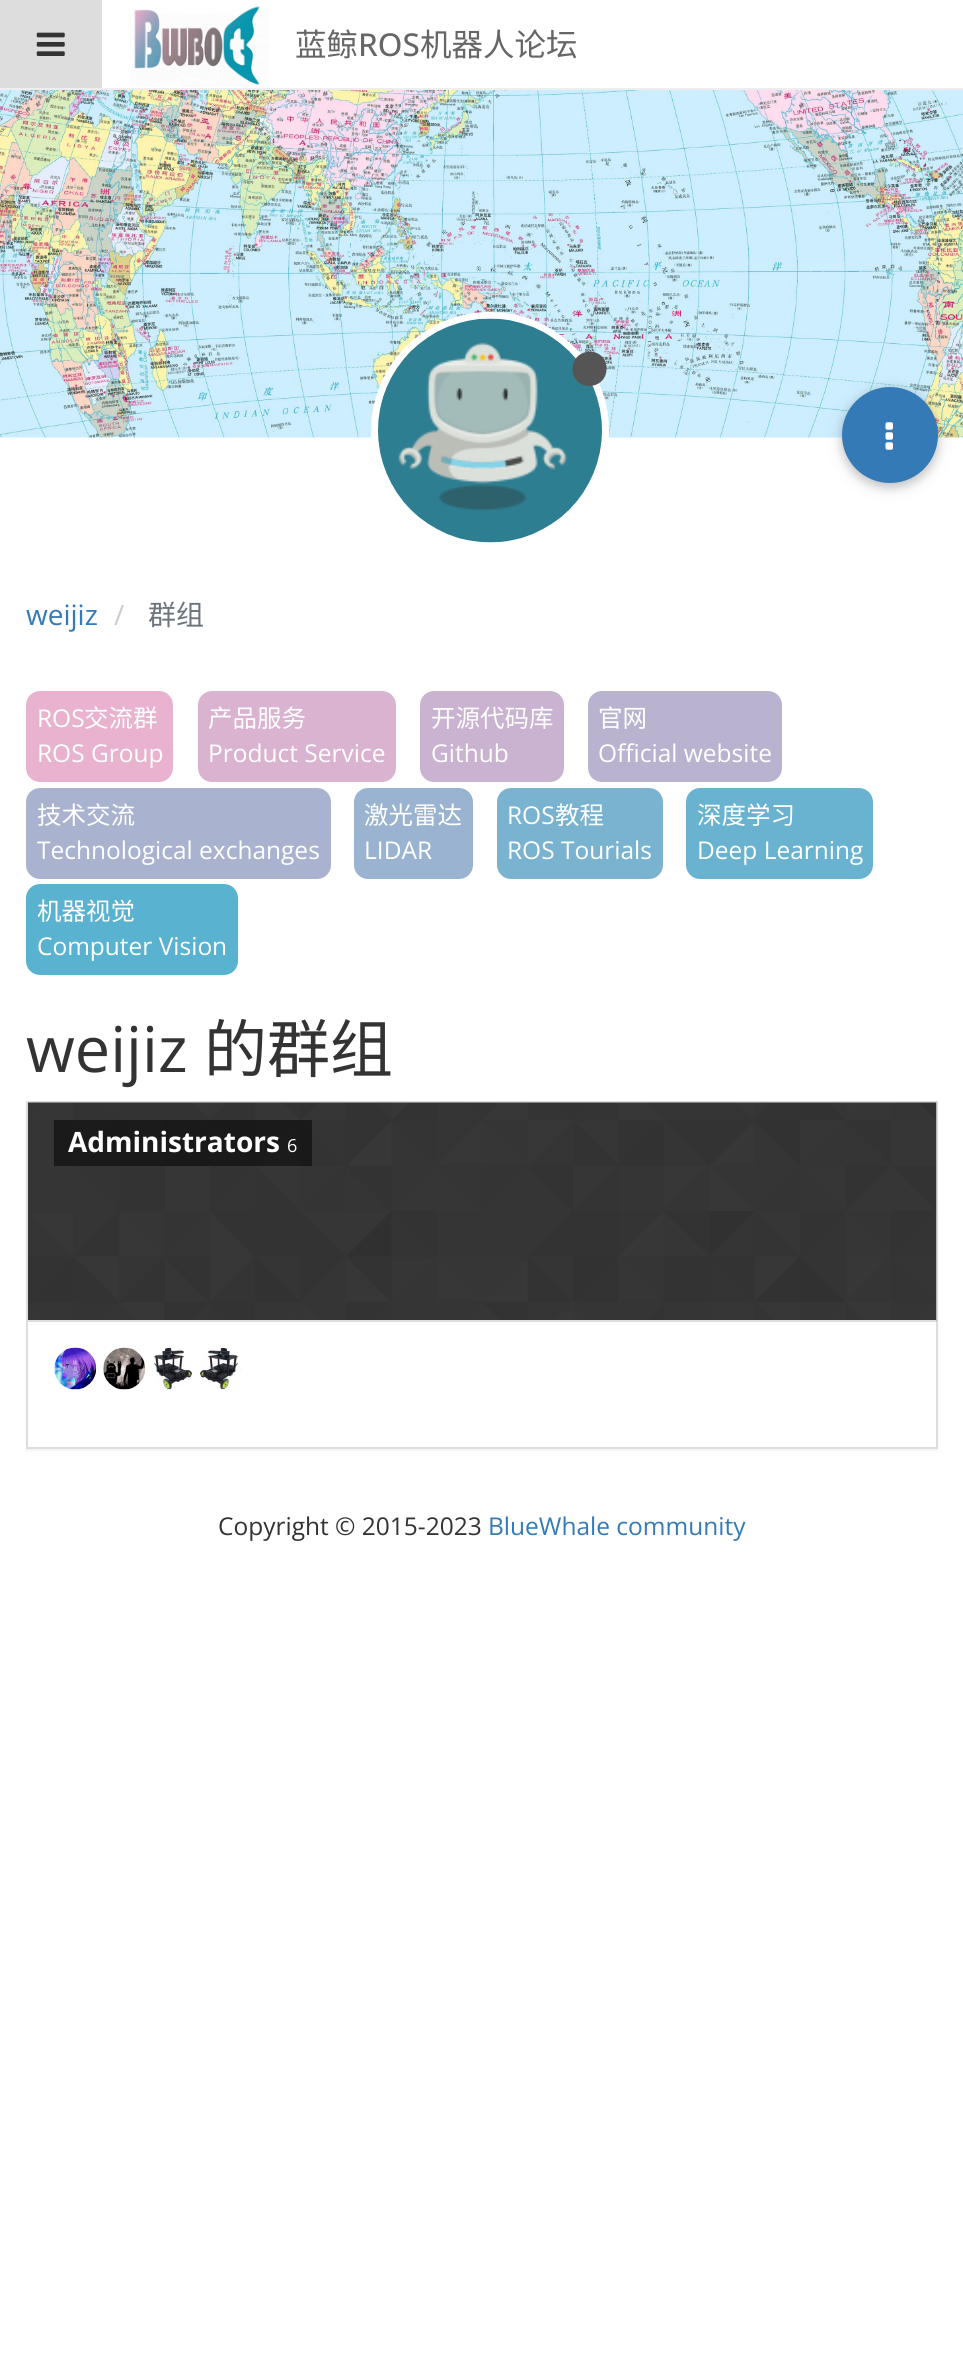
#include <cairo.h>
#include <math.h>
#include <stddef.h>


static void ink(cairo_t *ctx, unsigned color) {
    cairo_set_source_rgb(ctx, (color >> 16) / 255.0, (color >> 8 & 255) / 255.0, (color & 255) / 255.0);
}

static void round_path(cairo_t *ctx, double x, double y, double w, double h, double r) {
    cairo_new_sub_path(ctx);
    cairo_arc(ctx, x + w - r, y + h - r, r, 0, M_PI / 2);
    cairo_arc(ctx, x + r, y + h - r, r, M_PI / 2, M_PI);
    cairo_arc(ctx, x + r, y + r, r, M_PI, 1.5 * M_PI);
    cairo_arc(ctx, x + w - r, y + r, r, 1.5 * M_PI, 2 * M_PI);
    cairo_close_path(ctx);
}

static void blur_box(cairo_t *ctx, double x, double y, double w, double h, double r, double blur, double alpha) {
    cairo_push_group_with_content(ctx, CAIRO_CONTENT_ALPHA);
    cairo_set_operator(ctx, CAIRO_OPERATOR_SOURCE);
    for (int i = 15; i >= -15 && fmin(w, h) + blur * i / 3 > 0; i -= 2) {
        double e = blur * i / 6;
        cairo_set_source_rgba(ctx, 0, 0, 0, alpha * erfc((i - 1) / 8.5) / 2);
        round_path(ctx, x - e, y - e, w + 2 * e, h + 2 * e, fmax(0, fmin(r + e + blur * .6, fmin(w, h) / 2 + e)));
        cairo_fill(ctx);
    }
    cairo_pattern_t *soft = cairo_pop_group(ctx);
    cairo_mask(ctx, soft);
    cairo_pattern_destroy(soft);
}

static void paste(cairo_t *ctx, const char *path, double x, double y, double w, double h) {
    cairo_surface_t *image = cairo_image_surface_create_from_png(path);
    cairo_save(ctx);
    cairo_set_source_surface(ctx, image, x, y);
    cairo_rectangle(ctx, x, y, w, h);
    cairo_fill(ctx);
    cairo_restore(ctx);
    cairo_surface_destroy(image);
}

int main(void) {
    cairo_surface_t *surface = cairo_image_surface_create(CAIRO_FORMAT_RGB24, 963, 2368);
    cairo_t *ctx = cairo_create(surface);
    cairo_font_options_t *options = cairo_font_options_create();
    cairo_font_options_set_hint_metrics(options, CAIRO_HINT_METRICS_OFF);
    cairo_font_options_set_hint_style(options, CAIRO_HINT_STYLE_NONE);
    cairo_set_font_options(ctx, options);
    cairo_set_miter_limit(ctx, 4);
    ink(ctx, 0xFFFFFF);
    cairo_paint(ctx);
    ink(ctx, 0xEEEEEE);
    cairo_rectangle(ctx, 0, 88, 963, 2);
    cairo_fill(ctx);
    ink(ctx, 0xDDDDDD);
    cairo_rectangle(ctx, 0, 0, 102, 88);
    cairo_fill(ctx);
    paste(ctx, "media/1.png", 36, 32, 29, 24);
    paste(ctx, "media/2.png", 130, 6, 139, 81);
    cairo_select_font_face(ctx, "Noto Sans CJK SC", CAIRO_FONT_SLANT_NORMAL, CAIRO_FONT_WEIGHT_NORMAL);
    cairo_set_font_size(ctx, 31.5);
    ink(ctx, 0x666666);
    cairo_move_to(ctx, 295, 56);
    cairo_show_text(ctx, "蓝鲸");
    cairo_select_font_face(ctx, "Open Sans Medium", CAIRO_FONT_SLANT_NORMAL, CAIRO_FONT_WEIGHT_NORMAL);
    cairo_move_to(ctx, 358, 56);
    cairo_show_text(ctx, "ROS");
    cairo_select_font_face(ctx, "Noto Sans CJK SC", CAIRO_FONT_SLANT_NORMAL, CAIRO_FONT_WEIGHT_NORMAL);
    cairo_move_to(ctx, 420, 56);
    cairo_show_text(ctx, "机器人论坛");
    paste(ctx, "media/3.png", 0, 90, 963, 348);
    cairo_arc(ctx, 490, 431, 115.5, 0, 2 * M_PI);
    ink(ctx, 0xFFFFFF);
    cairo_set_line_width(ctx, 7);
    cairo_stroke(ctx);
    paste(ctx, "media/4.png", 378, 318, 224, 225);
    ink(ctx, 0x555555);
    cairo_new_path(ctx);
    cairo_move_to(ctx, 604.5, 360);
    cairo_curve_to(ctx, 606, 363, 607, 366.5, 606.5, 370);
    cairo_curve_to(ctx, 605.5, 387, 583, 392, 574.5, 377.5);
    cairo_curve_to(ctx, 573, 374.5, 572, 371, 572.5, 367.5);
    cairo_curve_to(ctx, 573.5, 351, 596, 345.5, 604.5, 360);
    cairo_close_path(ctx);
    cairo_fill(ctx);
    ink(ctx, 0x000000);
    blur_box(ctx, 842, 390, 96, 97, 48, 9, 0.12);
    blur_box(ctx, 842, 390, 96, 97, 48, 4.5, 0.16);
    ink(ctx, 0x337AB7);
    cairo_arc(ctx, 890, 435, 48, 0, 2 * M_PI);
    cairo_fill(ctx);
    paste(ctx, "media/5.png", 885, 422, 8, 28);
    cairo_select_font_face(ctx, "Open Sans", CAIRO_FONT_SLANT_NORMAL, CAIRO_FONT_WEIGHT_NORMAL);
    cairo_set_font_size(ctx, 28);
    cairo_move_to(ctx, 26, 625);
    cairo_show_text(ctx, "weijiz");
    ink(ctx, 0xCCCCCC);
    cairo_move_to(ctx, 114, 625);
    cairo_show_text(ctx, "/");
    cairo_select_font_face(ctx, "Noto Sans CJK SC", CAIRO_FONT_SLANT_NORMAL, CAIRO_FONT_WEIGHT_NORMAL);
    ink(ctx, 0x6C757D);
    cairo_move_to(ctx, 148, 625);
    cairo_show_text(ctx, "群组");
    ink(ctx, 0xE9B3D0);
    round_path(ctx, 26, 691, 147, 91, 14);
    cairo_fill(ctx);
    cairo_select_font_face(ctx, "Open Sans", CAIRO_FONT_SLANT_NORMAL, CAIRO_FONT_WEIGHT_NORMAL);
    cairo_set_font_size(ctx, 24.5);
    ink(ctx, 0xFFFFFF);
    cairo_move_to(ctx, 37, 727);
    cairo_show_text(ctx, "ROS");
    cairo_select_font_face(ctx, "Noto Sans CJK SC", CAIRO_FONT_SLANT_NORMAL, CAIRO_FONT_WEIGHT_NORMAL);
    cairo_move_to(ctx, 84, 727);
    cairo_show_text(ctx, "交流群");
    cairo_select_font_face(ctx, "Open Sans", CAIRO_FONT_SLANT_NORMAL, CAIRO_FONT_WEIGHT_NORMAL);
    cairo_move_to(ctx, 37, 762);
    cairo_show_text(ctx, "ROS Group");
    ink(ctx, 0xD9B3D0);
    round_path(ctx, 198, 691, 198, 91, 14);
    cairo_fill(ctx);
    cairo_select_font_face(ctx, "Noto Sans CJK SC", CAIRO_FONT_SLANT_NORMAL, CAIRO_FONT_WEIGHT_NORMAL);
    ink(ctx, 0xFFFFFF);
    cairo_move_to(ctx, 208, 727);
    cairo_show_text(ctx, "产品服务");
    cairo_select_font_face(ctx, "Open Sans", CAIRO_FONT_SLANT_NORMAL, CAIRO_FONT_WEIGHT_NORMAL);
    cairo_move_to(ctx, 208, 762);
    cairo_show_text(ctx, "Product Service");
    ink(ctx, 0xC9B3D0);
    round_path(ctx, 420, 691, 144, 91, 14);
    cairo_fill(ctx);
    cairo_select_font_face(ctx, "Noto Sans CJK SC", CAIRO_FONT_SLANT_NORMAL, CAIRO_FONT_WEIGHT_NORMAL);
    ink(ctx, 0xFFFFFF);
    cairo_move_to(ctx, 431, 727);
    cairo_show_text(ctx, "开源代码库");
    cairo_select_font_face(ctx, "Open Sans", CAIRO_FONT_SLANT_NORMAL, CAIRO_FONT_WEIGHT_NORMAL);
    cairo_move_to(ctx, 431, 762);
    cairo_show_text(ctx, "Github");
    ink(ctx, 0xB9B3D0);
    round_path(ctx, 588, 691, 194, 91, 14);
    cairo_fill(ctx);
    cairo_select_font_face(ctx, "Noto Sans CJK SC", CAIRO_FONT_SLANT_NORMAL, CAIRO_FONT_WEIGHT_NORMAL);
    ink(ctx, 0xFFFFFF);
    cairo_move_to(ctx, 598, 727);
    cairo_show_text(ctx, "官网");
    cairo_select_font_face(ctx, "Open Sans", CAIRO_FONT_SLANT_NORMAL, CAIRO_FONT_WEIGHT_NORMAL);
    cairo_move_to(ctx, 598, 762);
    cairo_show_text(ctx, "Official website");
    ink(ctx, 0xA9B3D0);
    round_path(ctx, 26, 788, 305, 91, 14);
    cairo_fill(ctx);
    cairo_select_font_face(ctx, "Noto Sans CJK SC", CAIRO_FONT_SLANT_NORMAL, CAIRO_FONT_WEIGHT_NORMAL);
    ink(ctx, 0xFFFFFF);
    cairo_move_to(ctx, 37, 824);
    cairo_show_text(ctx, "技术交流");
    cairo_select_font_face(ctx, "Open Sans", CAIRO_FONT_SLANT_NORMAL, CAIRO_FONT_WEIGHT_NORMAL);
    cairo_move_to(ctx, 37, 859);
    cairo_show_text(ctx, "Technological exchanges");
    ink(ctx, 0x99B3D0);
    round_path(ctx, 354, 788, 119, 91, 14);
    cairo_fill(ctx);
    cairo_select_font_face(ctx, "Noto Sans CJK SC", CAIRO_FONT_SLANT_NORMAL, CAIRO_FONT_WEIGHT_NORMAL);
    ink(ctx, 0xFFFFFF);
    cairo_move_to(ctx, 364, 824);
    cairo_show_text(ctx, "激光雷达");
    cairo_select_font_face(ctx, "Open Sans", CAIRO_FONT_SLANT_NORMAL, CAIRO_FONT_WEIGHT_NORMAL);
    cairo_move_to(ctx, 364, 859);
    cairo_show_text(ctx, "LIDAR");
    ink(ctx, 0x79B3D0);
    round_path(ctx, 497, 788, 166, 91, 14);
    cairo_fill(ctx);
    ink(ctx, 0xFFFFFF);
    cairo_move_to(ctx, 507, 824);
    cairo_show_text(ctx, "ROS");
    cairo_select_font_face(ctx, "Noto Sans CJK SC", CAIRO_FONT_SLANT_NORMAL, CAIRO_FONT_WEIGHT_NORMAL);
    cairo_move_to(ctx, 555, 824);
    cairo_show_text(ctx, "教程");
    cairo_select_font_face(ctx, "Open Sans", CAIRO_FONT_SLANT_NORMAL, CAIRO_FONT_WEIGHT_NORMAL);
    cairo_move_to(ctx, 507, 859);
    cairo_show_text(ctx, "ROS Tourials");
    ink(ctx, 0x69B3D0);
    round_path(ctx, 686, 788, 187, 91, 14);
    cairo_fill(ctx);
    cairo_select_font_face(ctx, "Noto Sans CJK SC", CAIRO_FONT_SLANT_NORMAL, CAIRO_FONT_WEIGHT_NORMAL);
    ink(ctx, 0xFFFFFF);
    cairo_move_to(ctx, 697, 824);
    cairo_show_text(ctx, "深度学习");
    cairo_select_font_face(ctx, "Open Sans", CAIRO_FONT_SLANT_NORMAL, CAIRO_FONT_WEIGHT_NORMAL);
    cairo_move_to(ctx, 697, 859);
    cairo_show_text(ctx, "Deep Learning");
    ink(ctx, 0x59B3D0);
    round_path(ctx, 26, 884, 212, 91, 14);
    cairo_fill(ctx);
    cairo_select_font_face(ctx, "Noto Sans CJK SC", CAIRO_FONT_SLANT_NORMAL, CAIRO_FONT_WEIGHT_NORMAL);
    ink(ctx, 0xFFFFFF);
    cairo_move_to(ctx, 37, 920);
    cairo_show_text(ctx, "机器视觉");
    cairo_select_font_face(ctx, "Open Sans", CAIRO_FONT_SLANT_NORMAL, CAIRO_FONT_WEIGHT_NORMAL);
    cairo_move_to(ctx, 37, 955);
    cairo_show_text(ctx, "Computer Vision");
    cairo_set_font_size(ctx, 63);
    ink(ctx, 0x333333);
    cairo_move_to(ctx, 26, 1072);
    cairo_show_text(ctx, "weijiz");
    cairo_select_font_face(ctx, "Noto Sans CJK SC", CAIRO_FONT_SLANT_NORMAL, CAIRO_FONT_WEIGHT_NORMAL);
    cairo_move_to(ctx, 204, 1072);
    cairo_show_text(ctx, "的群组");
    ink(ctx, 0x000000);
    blur_box(ctx, 26, 1103, 912, 348, 0, 1, 0.05);
    ink(ctx, 0xFFFFFF);
    cairo_rectangle(ctx, 28, 1322, 908, 125);
    cairo_fill(ctx);
    cairo_rectangle(ctx, 27, 1102, 910, 346);
    ink(ctx, 0xDDDDDD);
    cairo_set_line_width(ctx, 2);
    cairo_stroke(ctx);
    paste(ctx, "media/6.png", 28, 1102, 909, 220);
    cairo_rectangle(ctx, 28, 1320, 908, 2);
    cairo_fill(ctx);
    cairo_set_source_rgba(ctx, 0, 0, 0, 0.5);
    cairo_rectangle(ctx, 54, 1120, 258, 46);
    cairo_fill(ctx);
    cairo_select_font_face(ctx, "Open Sans", CAIRO_FONT_SLANT_NORMAL, CAIRO_FONT_WEIGHT_BOLD);
    cairo_set_font_size(ctx, 28);
    ink(ctx, 0xFFFFFF);
    cairo_move_to(ctx, 68, 1152);
    cairo_show_text(ctx, "Administrators");
    cairo_select_font_face(ctx, "Open Sans", CAIRO_FONT_SLANT_NORMAL, CAIRO_FONT_WEIGHT_NORMAL);
    cairo_set_font_size(ctx, 18);
    cairo_move_to(ctx, 287, 1152);
    cairo_show_text(ctx, "6");
    paste(ctx, "media/7.png", 54, 1347, 43, 43);
    paste(ctx, "media/8.png", 103, 1347, 43, 43);
    paste(ctx, "media/9.png", 154, 1347, 38, 43);
    paste(ctx, "media/10.png", 200, 1347, 42, 43);
    cairo_set_font_size(ctx, 24.5);
    ink(ctx, 0x333333);
    cairo_move_to(ctx, 218, 1535);
    cairo_show_text(ctx, "Copyright © 2015-2023");
    ink(ctx, 0x337AB7);
    cairo_move_to(ctx, 488, 1535);
    cairo_show_text(ctx, "BlueWhale community");
    cairo_surface_write_to_png(surface, "image.png");
    cairo_font_options_destroy(options);
    cairo_destroy(ctx);
    cairo_surface_destroy(surface);
    return 0;
}
